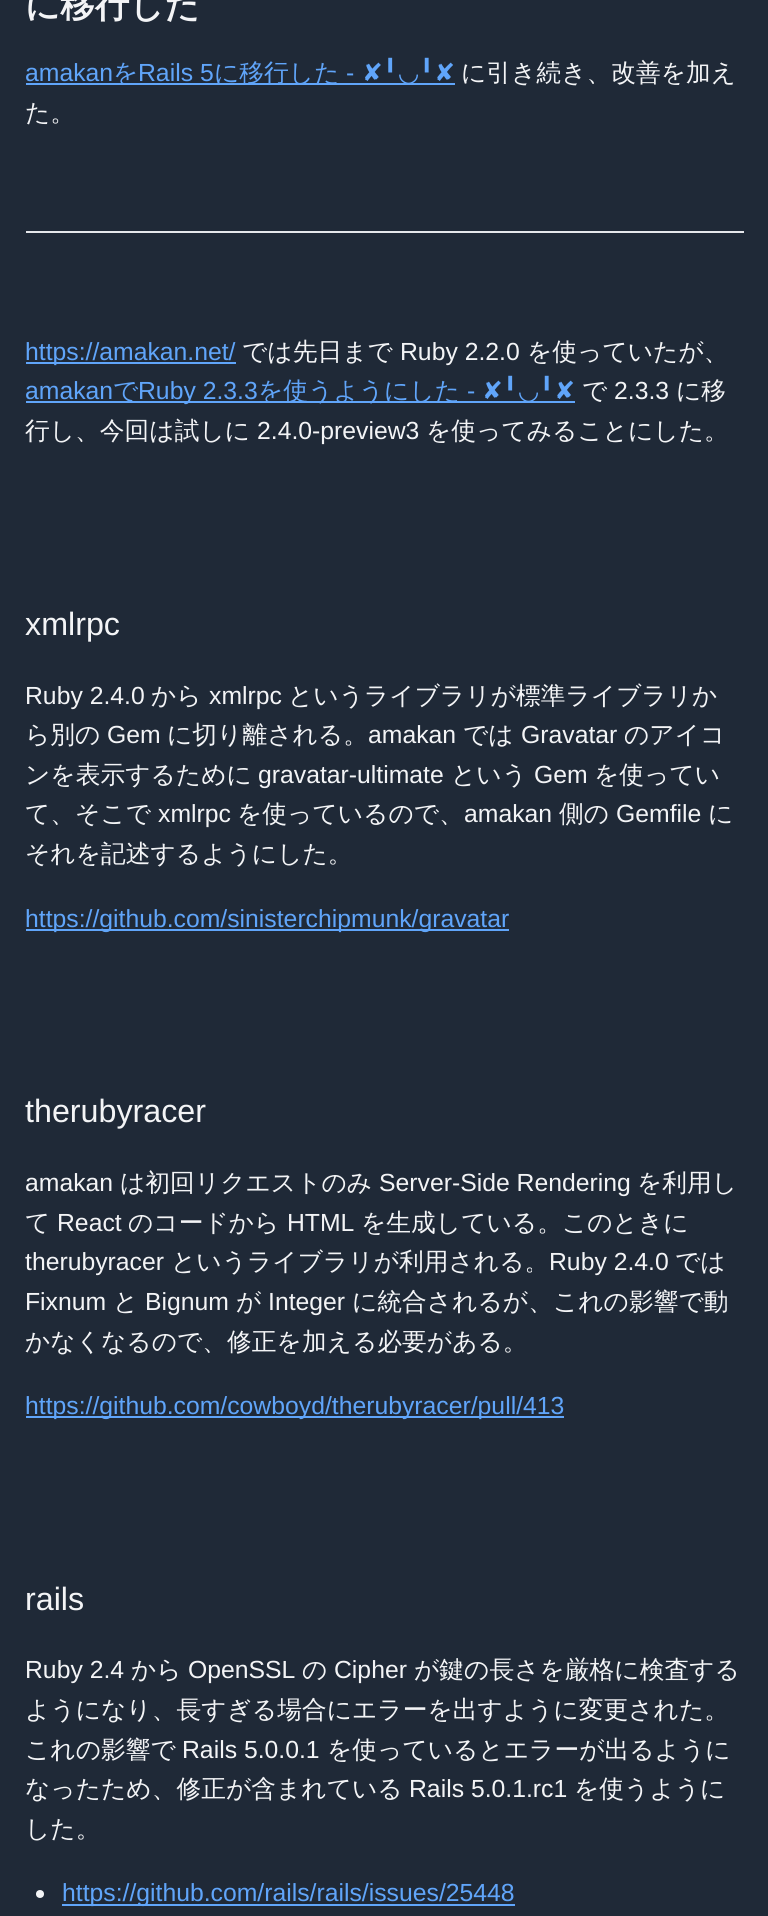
#include <cairo.h>
#include <math.h>
#include <stddef.h>

typedef struct { double x, y; const char *s; } line_t;

static void ink(cairo_t *ctx, unsigned color) {
    cairo_set_source_rgb(ctx, (color >> 16) / 255.0, (color >> 8 & 255) / 255.0, (color & 255) / 255.0);
}

int main(void) {
    cairo_surface_t *surface = cairo_image_surface_create(CAIRO_FORMAT_RGB24, 768, 1916);
    cairo_t *ctx = cairo_create(surface);
    cairo_font_options_t *options = cairo_font_options_create();
    cairo_font_options_set_hint_metrics(options, CAIRO_HINT_METRICS_OFF);
    cairo_font_options_set_hint_style(options, CAIRO_HINT_STYLE_NONE);
    cairo_set_font_options(ctx, options);
    cairo_set_miter_limit(ctx, 4);
    ink(ctx, 0x1F2937);
    cairo_paint(ctx);
    cairo_select_font_face(ctx, "WenQuanYi Zen Hei", CAIRO_FONT_SLANT_NORMAL, CAIRO_FONT_WEIGHT_BOLD);
    cairo_set_font_size(ctx, 34.5);
    ink(ctx, 0xF3F4F6);
    cairo_move_to(ctx, 25, 17);
    cairo_show_text(ctx, "に移行した");
    cairo_select_font_face(ctx, "Liberation Sans", CAIRO_FONT_SLANT_NORMAL, CAIRO_FONT_WEIGHT_NORMAL);
    cairo_set_font_size(ctx, 24.75);
    ink(ctx, 0x60A5FA);
    cairo_move_to(ctx, 25, 81);
    cairo_show_text(ctx, "amakan");
    cairo_rectangle(ctx, 26, 83, 429, 2);
    cairo_fill(ctx);
    cairo_select_font_face(ctx, "WenQuanYi Zen Hei Medium", CAIRO_FONT_SLANT_NORMAL, CAIRO_FONT_WEIGHT_NORMAL);
    cairo_move_to(ctx, 113, 81);
    cairo_show_text(ctx, "を");
    cairo_select_font_face(ctx, "Liberation Sans", CAIRO_FONT_SLANT_NORMAL, CAIRO_FONT_WEIGHT_NORMAL);
    cairo_move_to(ctx, 138, 81);
    cairo_show_text(ctx, "Rails 5");
    cairo_select_font_face(ctx, "WenQuanYi Zen Hei Medium", CAIRO_FONT_SLANT_NORMAL, CAIRO_FONT_WEIGHT_NORMAL);
    cairo_move_to(ctx, 214, 81);
    cairo_show_text(ctx, "に移行した");
    cairo_select_font_face(ctx, "Liberation Sans", CAIRO_FONT_SLANT_NORMAL, CAIRO_FONT_WEIGHT_NORMAL);
    cairo_move_to(ctx, 346, 81);
    cairo_show_text(ctx, "-");
    cairo_select_font_face(ctx, "DejaVu Sans", CAIRO_FONT_SLANT_NORMAL, CAIRO_FONT_WEIGHT_NORMAL);
    cairo_move_to(ctx, 362, 81);
    cairo_show_text(ctx, "✘╹◡╹✘");
    cairo_select_font_face(ctx, "WenQuanYi Zen Hei Medium", CAIRO_FONT_SLANT_NORMAL, CAIRO_FONT_WEIGHT_NORMAL);
    ink(ctx, 0xF3F4F6);
    cairo_move_to(ctx, 461, 81);
    cairo_show_text(ctx, "に引き続き、改善を加え");
    cairo_move_to(ctx, 25, 121);
    cairo_show_text(ctx, "た。");
    ink(ctx, 0xE5E7EB);
    cairo_rectangle(ctx, 26, 231, 718, 2);
    cairo_fill(ctx);
    ink(ctx, 0x60A5FA);
    cairo_rectangle(ctx, 26, 362, 210, 2);
    cairo_fill(ctx);
    cairo_select_font_face(ctx, "Liberation Sans", CAIRO_FONT_SLANT_NORMAL, CAIRO_FONT_WEIGHT_NORMAL);
    cairo_move_to(ctx, 25, 360);
    cairo_show_text(ctx, "https://amakan.net/");
    cairo_select_font_face(ctx, "WenQuanYi Zen Hei Medium", CAIRO_FONT_SLANT_NORMAL, CAIRO_FONT_WEIGHT_NORMAL);
    ink(ctx, 0xF3F4F6);
    cairo_move_to(ctx, 242, 360);
    cairo_show_text(ctx, "では先日まで");
    cairo_select_font_face(ctx, "Liberation Sans", CAIRO_FONT_SLANT_NORMAL, CAIRO_FONT_WEIGHT_NORMAL);
    cairo_move_to(ctx, 400, 360);
    cairo_show_text(ctx, "Ruby 2.2.0");
    cairo_select_font_face(ctx, "WenQuanYi Zen Hei Medium", CAIRO_FONT_SLANT_NORMAL, CAIRO_FONT_WEIGHT_NORMAL);
    cairo_move_to(ctx, 527, 360);
    cairo_show_text(ctx, "を使っていたが、");
    cairo_select_font_face(ctx, "Liberation Sans", CAIRO_FONT_SLANT_NORMAL, CAIRO_FONT_WEIGHT_NORMAL);
    ink(ctx, 0x60A5FA);
    cairo_move_to(ctx, 25, 399);
    cairo_show_text(ctx, "amakan");
    cairo_rectangle(ctx, 26, 401, 549, 2);
    cairo_fill(ctx);
    cairo_select_font_face(ctx, "WenQuanYi Zen Hei Medium", CAIRO_FONT_SLANT_NORMAL, CAIRO_FONT_WEIGHT_NORMAL);
    cairo_move_to(ctx, 113, 399);
    cairo_show_text(ctx, "で");
    cairo_select_font_face(ctx, "Liberation Sans", CAIRO_FONT_SLANT_NORMAL, CAIRO_FONT_WEIGHT_NORMAL);
    cairo_move_to(ctx, 138, 399);
    cairo_show_text(ctx, "Ruby 2.3.3");
    cairo_select_font_face(ctx, "WenQuanYi Zen Hei Medium", CAIRO_FONT_SLANT_NORMAL, CAIRO_FONT_WEIGHT_NORMAL);
    cairo_move_to(ctx, 258, 399);
    cairo_show_text(ctx, "を使うようにした");
    cairo_select_font_face(ctx, "Liberation Sans", CAIRO_FONT_SLANT_NORMAL, CAIRO_FONT_WEIGHT_NORMAL);
    cairo_move_to(ctx, 467, 399);
    cairo_show_text(ctx, "-");
    cairo_select_font_face(ctx, "DejaVu Sans", CAIRO_FONT_SLANT_NORMAL, CAIRO_FONT_WEIGHT_NORMAL);
    cairo_move_to(ctx, 482, 399);
    cairo_show_text(ctx, "✘╹◡╹✘");
    cairo_select_font_face(ctx, "WenQuanYi Zen Hei Medium", CAIRO_FONT_SLANT_NORMAL, CAIRO_FONT_WEIGHT_NORMAL);
    ink(ctx, 0xF3F4F6);
    cairo_move_to(ctx, 582, 399);
    cairo_show_text(ctx, "で");
    cairo_select_font_face(ctx, "Liberation Sans", CAIRO_FONT_SLANT_NORMAL, CAIRO_FONT_WEIGHT_NORMAL);
    cairo_move_to(ctx, 614, 399);
    cairo_show_text(ctx, "2.3.3");
    cairo_select_font_face(ctx, "WenQuanYi Zen Hei Medium", CAIRO_FONT_SLANT_NORMAL, CAIRO_FONT_WEIGHT_NORMAL);
    cairo_move_to(ctx, 676, 399);
    cairo_show_text(ctx, "に移");
    cairo_move_to(ctx, 25, 439);
    cairo_show_text(ctx, "行し、今回は試しに");
    cairo_select_font_face(ctx, "Liberation Sans", CAIRO_FONT_SLANT_NORMAL, CAIRO_FONT_WEIGHT_NORMAL);
    cairo_move_to(ctx, 257, 439);
    cairo_show_text(ctx, "2.4.0-preview3");
    cairo_select_font_face(ctx, "WenQuanYi Zen Hei Medium", CAIRO_FONT_SLANT_NORMAL, CAIRO_FONT_WEIGHT_NORMAL);
    cairo_move_to(ctx, 426, 439);
    cairo_show_text(ctx, "を使ってみることにした。");
    cairo_select_font_face(ctx, "Liberation Sans", CAIRO_FONT_SLANT_NORMAL, CAIRO_FONT_WEIGHT_NORMAL);
    cairo_set_font_size(ctx, 32.25);
    cairo_move_to(ctx, 25, 635);
    cairo_show_text(ctx, "xmlrpc");
    cairo_set_font_size(ctx, 24.75);
    cairo_move_to(ctx, 25, 704);
    cairo_show_text(ctx, "Ruby 2.4.0");
    cairo_select_font_face(ctx, "WenQuanYi Zen Hei Medium", CAIRO_FONT_SLANT_NORMAL, CAIRO_FONT_WEIGHT_NORMAL);
    cairo_move_to(ctx, 151, 704);
    cairo_show_text(ctx, "から");
    cairo_select_font_face(ctx, "Liberation Sans", CAIRO_FONT_SLANT_NORMAL, CAIRO_FONT_WEIGHT_NORMAL);
    cairo_move_to(ctx, 209, 704);
    cairo_show_text(ctx, "xmlrpc");
    cairo_select_font_face(ctx, "WenQuanYi Zen Hei Medium", CAIRO_FONT_SLANT_NORMAL, CAIRO_FONT_WEIGHT_NORMAL);
    cairo_move_to(ctx, 288, 704);
    cairo_show_text(ctx, "というライブラリが標準ライブラリか");
    cairo_move_to(ctx, 25, 743);
    cairo_show_text(ctx, "ら別の");
    cairo_select_font_face(ctx, "Liberation Sans", CAIRO_FONT_SLANT_NORMAL, CAIRO_FONT_WEIGHT_NORMAL);
    cairo_move_to(ctx, 107, 743);
    cairo_show_text(ctx, "Gem");
    cairo_select_font_face(ctx, "WenQuanYi Zen Hei Medium", CAIRO_FONT_SLANT_NORMAL, CAIRO_FONT_WEIGHT_NORMAL);
    cairo_move_to(ctx, 167, 743);
    cairo_show_text(ctx, "に切り離される。");
    cairo_select_font_face(ctx, "Liberation Sans", CAIRO_FONT_SLANT_NORMAL, CAIRO_FONT_WEIGHT_NORMAL);
    cairo_move_to(ctx, 368, 743);
    cairo_show_text(ctx, "amakan");
    cairo_select_font_face(ctx, "WenQuanYi Zen Hei Medium", CAIRO_FONT_SLANT_NORMAL, CAIRO_FONT_WEIGHT_NORMAL);
    cairo_move_to(ctx, 463, 743);
    cairo_show_text(ctx, "では");
    cairo_select_font_face(ctx, "Liberation Sans", CAIRO_FONT_SLANT_NORMAL, CAIRO_FONT_WEIGHT_NORMAL);
    cairo_move_to(ctx, 521, 743);
    cairo_show_text(ctx, "Gravatar");
    cairo_select_font_face(ctx, "WenQuanYi Zen Hei Medium", CAIRO_FONT_SLANT_NORMAL, CAIRO_FONT_WEIGHT_NORMAL);
    cairo_move_to(ctx, 624, 743);
    cairo_show_text(ctx, "のアイコ");
    cairo_move_to(ctx, 25, 783);
    cairo_show_text(ctx, "ンを表示するために");
    cairo_select_font_face(ctx, "Liberation Sans", CAIRO_FONT_SLANT_NORMAL, CAIRO_FONT_WEIGHT_NORMAL);
    cairo_move_to(ctx, 258, 783);
    cairo_show_text(ctx, "gravatar-ultimate");
    cairo_select_font_face(ctx, "WenQuanYi Zen Hei Medium", CAIRO_FONT_SLANT_NORMAL, CAIRO_FONT_WEIGHT_NORMAL);
    cairo_move_to(ctx, 451, 783);
    cairo_show_text(ctx, "という");
    cairo_select_font_face(ctx, "Liberation Sans", CAIRO_FONT_SLANT_NORMAL, CAIRO_FONT_WEIGHT_NORMAL);
    cairo_move_to(ctx, 534, 783);
    cairo_show_text(ctx, "Gem");
    cairo_select_font_face(ctx, "WenQuanYi Zen Hei Medium", CAIRO_FONT_SLANT_NORMAL, CAIRO_FONT_WEIGHT_NORMAL);
    cairo_move_to(ctx, 594, 783);
    cairo_show_text(ctx, "を使ってい");
    cairo_move_to(ctx, 25, 822);
    cairo_show_text(ctx, "て、そこで");
    cairo_select_font_face(ctx, "Liberation Sans", CAIRO_FONT_SLANT_NORMAL, CAIRO_FONT_WEIGHT_NORMAL);
    cairo_move_to(ctx, 158, 822);
    cairo_show_text(ctx, "xmlrpc");
    cairo_select_font_face(ctx, "WenQuanYi Zen Hei Medium", CAIRO_FONT_SLANT_NORMAL, CAIRO_FONT_WEIGHT_NORMAL);
    cairo_move_to(ctx, 237, 822);
    cairo_show_text(ctx, "を使っているので、");
    cairo_select_font_face(ctx, "Liberation Sans", CAIRO_FONT_SLANT_NORMAL, CAIRO_FONT_WEIGHT_NORMAL);
    cairo_move_to(ctx, 464, 822);
    cairo_show_text(ctx, "amakan");
    cairo_select_font_face(ctx, "WenQuanYi Zen Hei Medium", CAIRO_FONT_SLANT_NORMAL, CAIRO_FONT_WEIGHT_NORMAL);
    cairo_move_to(ctx, 559, 822);
    cairo_show_text(ctx, "側の");
    cairo_select_font_face(ctx, "Liberation Sans", CAIRO_FONT_SLANT_NORMAL, CAIRO_FONT_WEIGHT_NORMAL);
    cairo_move_to(ctx, 616, 822);
    cairo_show_text(ctx, "Gemfile");
    cairo_select_font_face(ctx, "WenQuanYi Zen Hei Medium", CAIRO_FONT_SLANT_NORMAL, CAIRO_FONT_WEIGHT_NORMAL);
    cairo_move_to(ctx, 708, 822);
    cairo_show_text(ctx, "に");
    cairo_move_to(ctx, 25, 862);
    cairo_show_text(ctx, "それを記述するようにした。");
    ink(ctx, 0x60A5FA);
    cairo_rectangle(ctx, 26, 929, 483, 2);
    cairo_fill(ctx);
    cairo_select_font_face(ctx, "Liberation Sans", CAIRO_FONT_SLANT_NORMAL, CAIRO_FONT_WEIGHT_NORMAL);
    cairo_move_to(ctx, 25, 927);
    cairo_show_text(ctx, "https://github.com/sinisterchipmunk/gravatar");
    cairo_set_font_size(ctx, 32.25);
    ink(ctx, 0xF3F4F6);
    cairo_move_to(ctx, 25, 1122);
    cairo_show_text(ctx, "therubyracer");
    cairo_set_font_size(ctx, 24.75);
    cairo_move_to(ctx, 25, 1191);
    cairo_show_text(ctx, "amakan");
    cairo_select_font_face(ctx, "WenQuanYi Zen Hei Medium", CAIRO_FONT_SLANT_NORMAL, CAIRO_FONT_WEIGHT_NORMAL);
    cairo_move_to(ctx, 120, 1191);
    cairo_show_text(ctx, "は初回リクエストのみ");
    cairo_select_font_face(ctx, "Liberation Sans", CAIRO_FONT_SLANT_NORMAL, CAIRO_FONT_WEIGHT_NORMAL);
    cairo_move_to(ctx, 379, 1191);
    cairo_show_text(ctx, "Server-Side Rendering");
    cairo_select_font_face(ctx, "WenQuanYi Zen Hei Medium", CAIRO_FONT_SLANT_NORMAL, CAIRO_FONT_WEIGHT_NORMAL);
    cairo_move_to(ctx, 637, 1191);
    cairo_show_text(ctx, "を利用し");
    cairo_move_to(ctx, 25, 1231);
    cairo_show_text(ctx, "て");
    cairo_select_font_face(ctx, "Liberation Sans", CAIRO_FONT_SLANT_NORMAL, CAIRO_FONT_WEIGHT_NORMAL);
    cairo_move_to(ctx, 57, 1231);
    cairo_show_text(ctx, "React");
    cairo_select_font_face(ctx, "WenQuanYi Zen Hei Medium", CAIRO_FONT_SLANT_NORMAL, CAIRO_FONT_WEIGHT_NORMAL);
    cairo_move_to(ctx, 128, 1231);
    cairo_show_text(ctx, "のコードから");
    cairo_select_font_face(ctx, "Liberation Sans", CAIRO_FONT_SLANT_NORMAL, CAIRO_FONT_WEIGHT_NORMAL);
    cairo_move_to(ctx, 287, 1231);
    cairo_show_text(ctx, "HTML");
    cairo_select_font_face(ctx, "WenQuanYi Zen Hei Medium", CAIRO_FONT_SLANT_NORMAL, CAIRO_FONT_WEIGHT_NORMAL);
    cairo_move_to(ctx, 361, 1231);
    cairo_show_text(ctx, "を生成している。このときに");
    cairo_select_font_face(ctx, "Liberation Sans", CAIRO_FONT_SLANT_NORMAL, CAIRO_FONT_WEIGHT_NORMAL);
    cairo_move_to(ctx, 25, 1270);
    cairo_show_text(ctx, "therubyracer");
    cairo_select_font_face(ctx, "WenQuanYi Zen Hei Medium", CAIRO_FONT_SLANT_NORMAL, CAIRO_FONT_WEIGHT_NORMAL);
    cairo_move_to(ctx, 171, 1270);
    cairo_show_text(ctx, "というライブラリが利用される。");
    cairo_select_font_face(ctx, "Liberation Sans", CAIRO_FONT_SLANT_NORMAL, CAIRO_FONT_WEIGHT_NORMAL);
    cairo_move_to(ctx, 549, 1270);
    cairo_show_text(ctx, "Ruby 2.4.0");
    cairo_select_font_face(ctx, "WenQuanYi Zen Hei Medium", CAIRO_FONT_SLANT_NORMAL, CAIRO_FONT_WEIGHT_NORMAL);
    cairo_move_to(ctx, 675, 1270);
    cairo_show_text(ctx, "では");
    cairo_select_font_face(ctx, "Liberation Sans", CAIRO_FONT_SLANT_NORMAL, CAIRO_FONT_WEIGHT_NORMAL);
    cairo_move_to(ctx, 25, 1310);
    cairo_show_text(ctx, "Fixnum");
    cairo_select_font_face(ctx, "WenQuanYi Zen Hei Medium", CAIRO_FONT_SLANT_NORMAL, CAIRO_FONT_WEIGHT_NORMAL);
    cairo_move_to(ctx, 113, 1310);
    cairo_show_text(ctx, "と");
    cairo_select_font_face(ctx, "Liberation Sans", CAIRO_FONT_SLANT_NORMAL, CAIRO_FONT_WEIGHT_NORMAL);
    cairo_move_to(ctx, 145, 1310);
    cairo_show_text(ctx, "Bignum");
    cairo_select_font_face(ctx, "WenQuanYi Zen Hei Medium", CAIRO_FONT_SLANT_NORMAL, CAIRO_FONT_WEIGHT_NORMAL);
    cairo_move_to(ctx, 236, 1310);
    cairo_show_text(ctx, "が");
    cairo_select_font_face(ctx, "Liberation Sans", CAIRO_FONT_SLANT_NORMAL, CAIRO_FONT_WEIGHT_NORMAL);
    cairo_move_to(ctx, 268, 1310);
    cairo_show_text(ctx, "Integer");
    cairo_select_font_face(ctx, "WenQuanYi Zen Hei Medium", CAIRO_FONT_SLANT_NORMAL, CAIRO_FONT_WEIGHT_NORMAL);
    cairo_move_to(ctx, 352, 1310);
    cairo_show_text(ctx, "に統合されるが、これの影響で動");
    cairo_move_to(ctx, 25, 1350);
    cairo_show_text(ctx, "かなくなるので、修正を加える必要がある。");
    ink(ctx, 0x60A5FA);
    cairo_rectangle(ctx, 26, 1416, 538, 2);
    cairo_fill(ctx);
    cairo_select_font_face(ctx, "Liberation Sans", CAIRO_FONT_SLANT_NORMAL, CAIRO_FONT_WEIGHT_NORMAL);
    cairo_move_to(ctx, 25, 1414);
    cairo_show_text(ctx, "https://github.com/cowboyd/therubyracer/pull/413");
    cairo_set_font_size(ctx, 32.25);
    ink(ctx, 0xF3F4F6);
    cairo_move_to(ctx, 25, 1610);
    cairo_show_text(ctx, "rails");
    cairo_set_font_size(ctx, 24.75);
    cairo_move_to(ctx, 25, 1678);
    cairo_show_text(ctx, "Ruby 2.4");
    cairo_select_font_face(ctx, "WenQuanYi Zen Hei Medium", CAIRO_FONT_SLANT_NORMAL, CAIRO_FONT_WEIGHT_NORMAL);
    cairo_move_to(ctx, 131, 1678);
    cairo_show_text(ctx, "から");
    cairo_select_font_face(ctx, "Liberation Sans", CAIRO_FONT_SLANT_NORMAL, CAIRO_FONT_WEIGHT_NORMAL);
    cairo_move_to(ctx, 188, 1678);
    cairo_show_text(ctx, "OpenSSL");
    cairo_select_font_face(ctx, "WenQuanYi Zen Hei Medium", CAIRO_FONT_SLANT_NORMAL, CAIRO_FONT_WEIGHT_NORMAL);
    cairo_move_to(ctx, 302, 1678);
    cairo_show_text(ctx, "の");
    cairo_select_font_face(ctx, "Liberation Sans", CAIRO_FONT_SLANT_NORMAL, CAIRO_FONT_WEIGHT_NORMAL);
    cairo_move_to(ctx, 334, 1678);
    cairo_show_text(ctx, "Cipher");
    cairo_select_font_face(ctx, "WenQuanYi Zen Hei Medium", CAIRO_FONT_SLANT_NORMAL, CAIRO_FONT_WEIGHT_NORMAL);
    {
        static const line_t items[] = {
            {414, 1678, "が鍵の長さを厳格に検査する"},
            {25, 1718, "ようになり、長すぎる場合にエラーを出すように変更された。"},
            {25, 1758, "これの影響で"},
        };
        for (size_t i = 0; i < sizeof items / sizeof *items; i++) {
            cairo_move_to(ctx, items[i].x, items[i].y);
            cairo_show_text(ctx, items[i].s);
        }
    }
    cairo_select_font_face(ctx, "Liberation Sans", CAIRO_FONT_SLANT_NORMAL, CAIRO_FONT_WEIGHT_NORMAL);
    cairo_move_to(ctx, 182, 1758);
    cairo_show_text(ctx, "Rails 5.0.0.1");
    cairo_select_font_face(ctx, "WenQuanYi Zen Hei Medium", CAIRO_FONT_SLANT_NORMAL, CAIRO_FONT_WEIGHT_NORMAL);
    cairo_move_to(ctx, 327, 1758);
    cairo_show_text(ctx, "を使っているとエラーが出るように");
    cairo_move_to(ctx, 25, 1797);
    cairo_show_text(ctx, "なったため、修正が含まれている");
    cairo_select_font_face(ctx, "Liberation Sans", CAIRO_FONT_SLANT_NORMAL, CAIRO_FONT_WEIGHT_NORMAL);
    cairo_move_to(ctx, 409, 1797);
    cairo_show_text(ctx, "Rails 5.0.1.rc1");
    cairo_select_font_face(ctx, "WenQuanYi Zen Hei Medium", CAIRO_FONT_SLANT_NORMAL, CAIRO_FONT_WEIGHT_NORMAL);
    cairo_move_to(ctx, 574, 1797);
    cairo_show_text(ctx, "を使うように");
    cairo_move_to(ctx, 25, 1837);
    cairo_show_text(ctx, "した。");
    cairo_new_path(ctx);
    cairo_arc(ctx, 40, 1894, 4, 0, 2 * M_PI);
    cairo_fill(ctx);
    ink(ctx, 0x60A5FA);
    cairo_rectangle(ctx, 62, 1904, 453, 2);
    cairo_fill(ctx);
    cairo_select_font_face(ctx, "Liberation Sans", CAIRO_FONT_SLANT_NORMAL, CAIRO_FONT_WEIGHT_NORMAL);
    cairo_move_to(ctx, 62, 1901);
    cairo_show_text(ctx, "https://github.com/rails/rails/issues/25448");
    cairo_surface_write_to_png(surface, "image.png");
    cairo_font_options_destroy(options);
    cairo_destroy(ctx);
    cairo_surface_destroy(surface);
    return 0;
}
